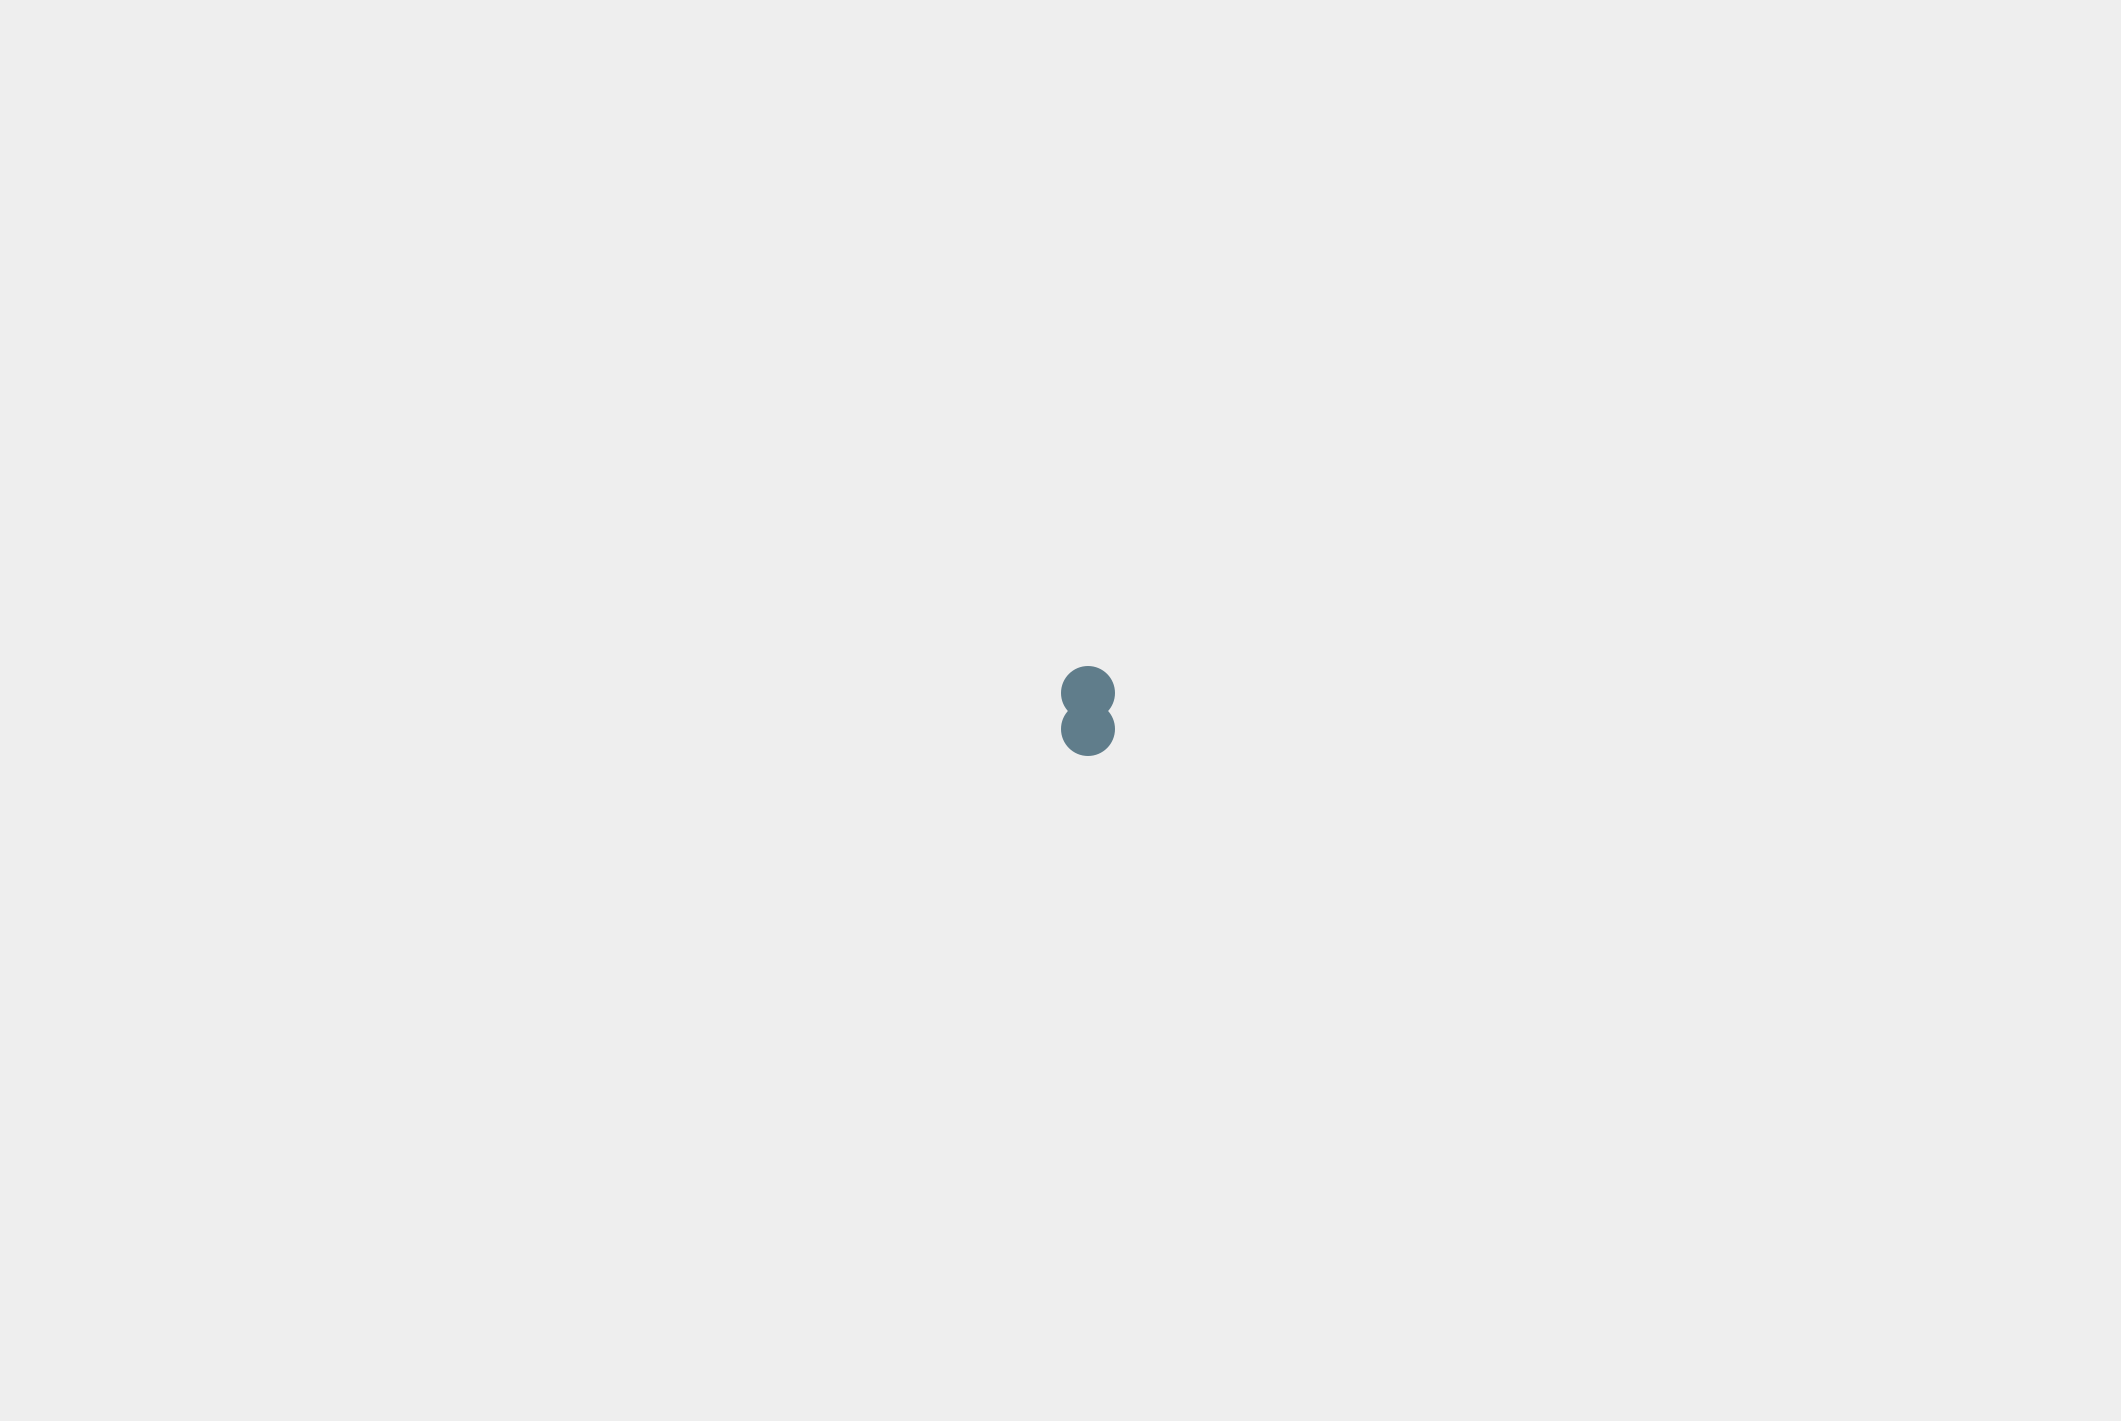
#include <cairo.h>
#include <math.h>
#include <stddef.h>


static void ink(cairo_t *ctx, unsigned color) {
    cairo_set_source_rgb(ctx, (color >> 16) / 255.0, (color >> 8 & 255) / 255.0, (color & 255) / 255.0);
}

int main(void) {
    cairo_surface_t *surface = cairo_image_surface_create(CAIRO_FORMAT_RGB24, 2121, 1421);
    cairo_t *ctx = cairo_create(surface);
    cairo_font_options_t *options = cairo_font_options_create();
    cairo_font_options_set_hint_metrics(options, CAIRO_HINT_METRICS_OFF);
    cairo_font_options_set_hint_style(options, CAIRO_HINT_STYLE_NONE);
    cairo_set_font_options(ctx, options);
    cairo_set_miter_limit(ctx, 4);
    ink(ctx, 0xEEEEEE);
    cairo_paint(ctx);
    ink(ctx, 0x607D8B);
    cairo_arc(ctx, 1088, 693, 27, 0, 2 * M_PI);
    cairo_fill(ctx);
    cairo_arc(ctx, 1088, 729, 27, 0, 2 * M_PI);
    cairo_fill(ctx);
    cairo_surface_write_to_png(surface, "image.png");
    cairo_font_options_destroy(options);
    cairo_destroy(ctx);
    cairo_surface_destroy(surface);
    return 0;
}
